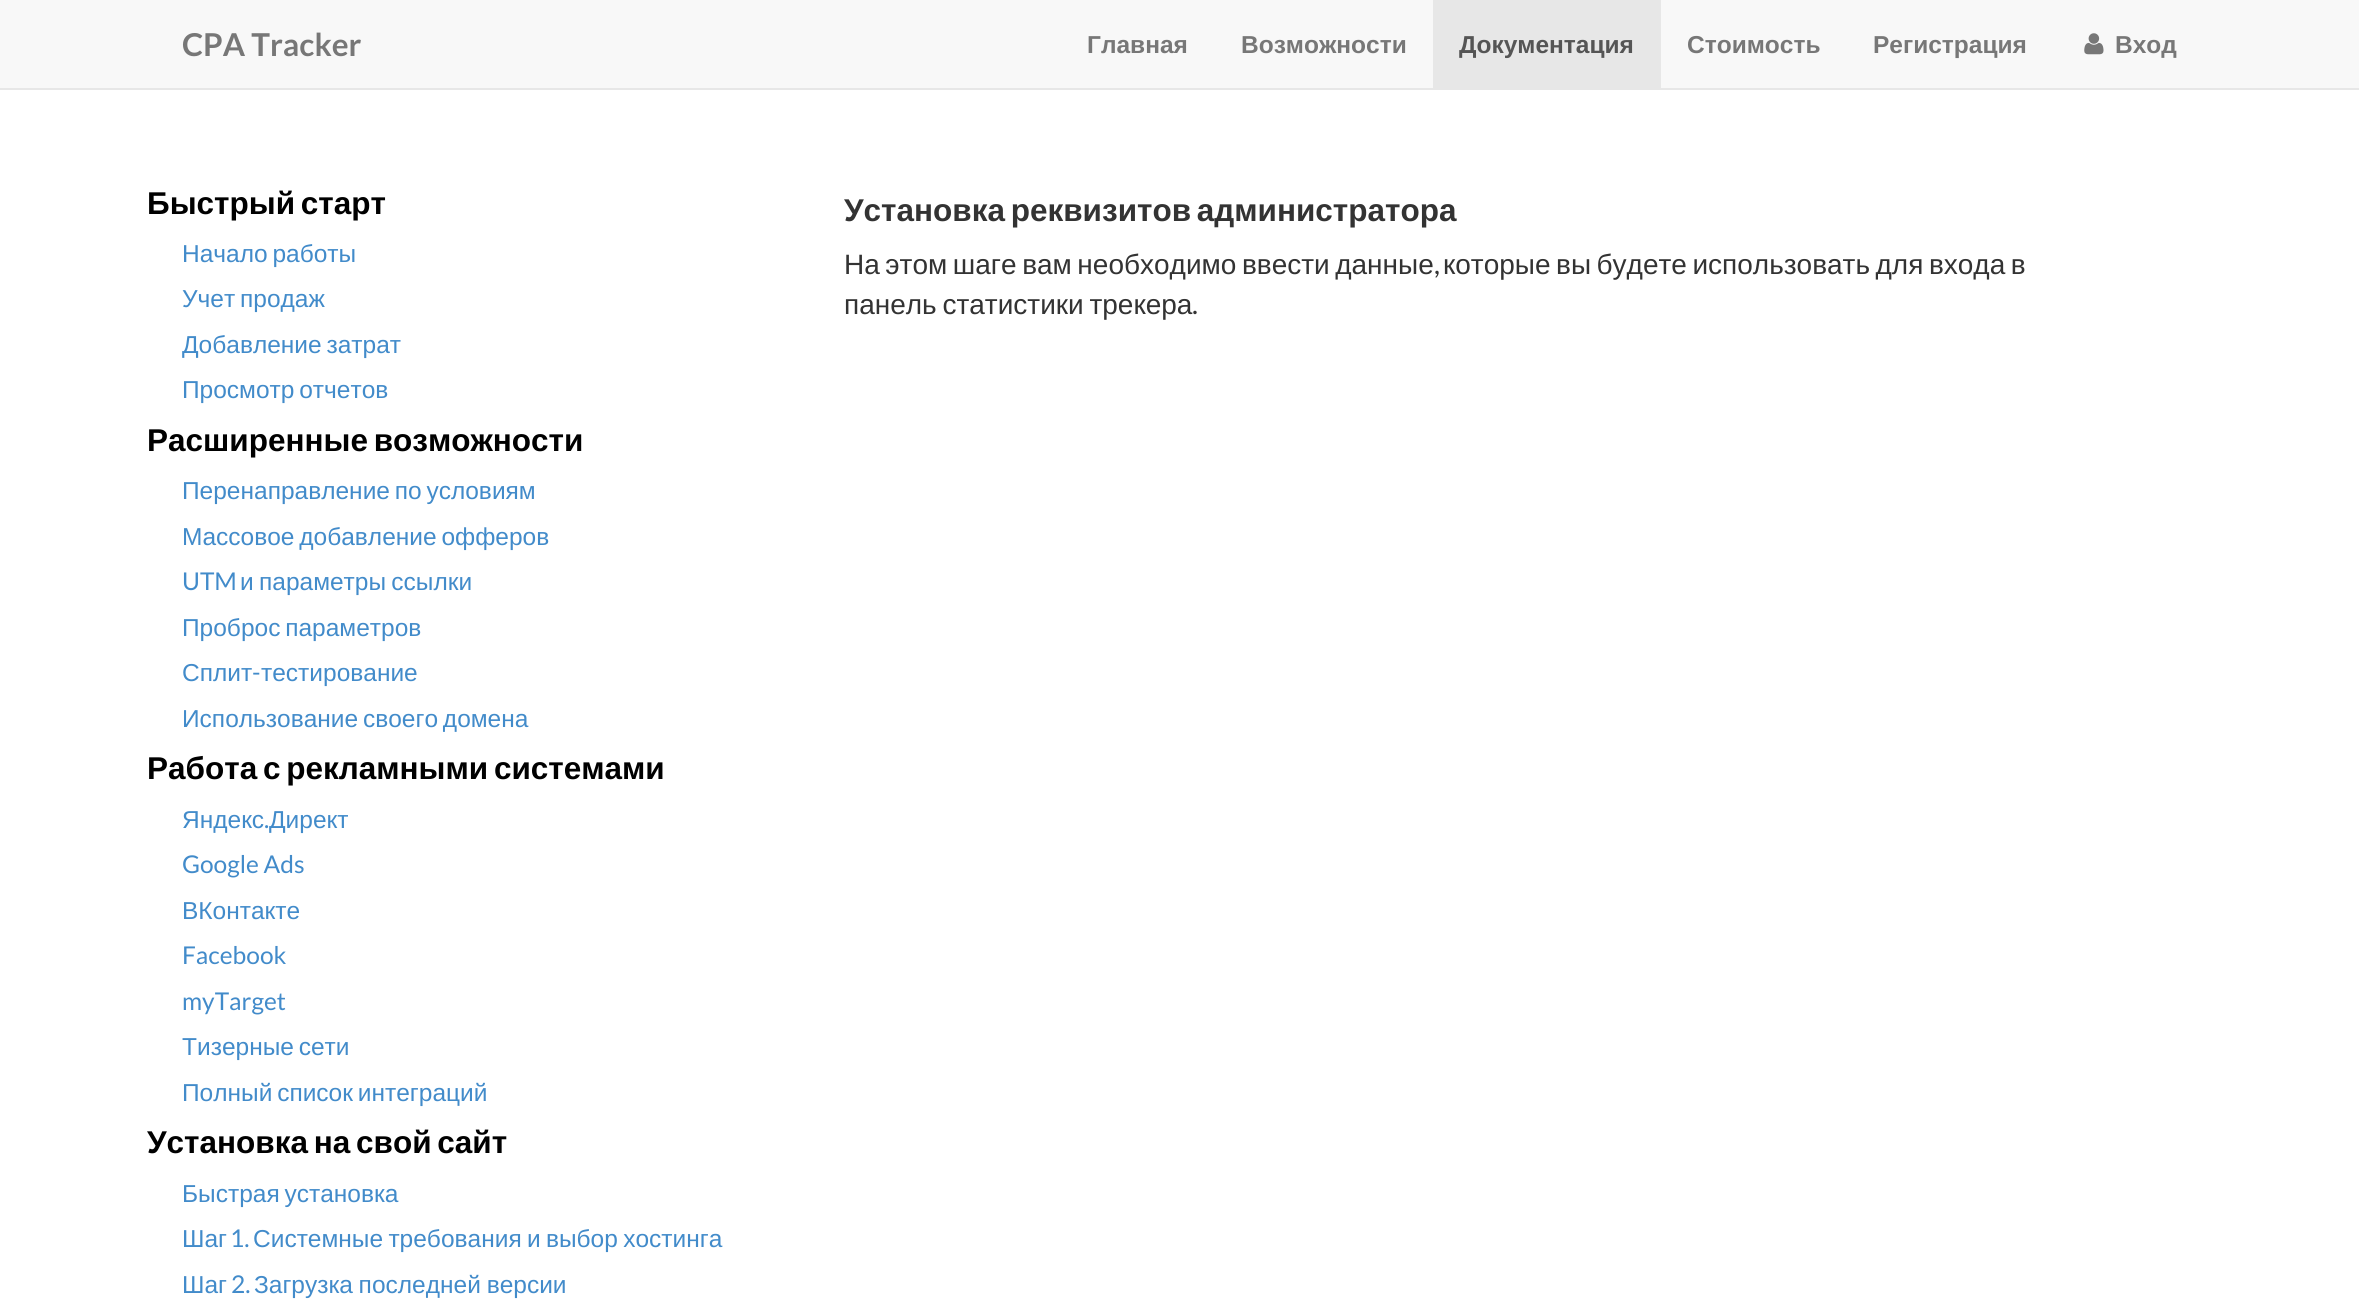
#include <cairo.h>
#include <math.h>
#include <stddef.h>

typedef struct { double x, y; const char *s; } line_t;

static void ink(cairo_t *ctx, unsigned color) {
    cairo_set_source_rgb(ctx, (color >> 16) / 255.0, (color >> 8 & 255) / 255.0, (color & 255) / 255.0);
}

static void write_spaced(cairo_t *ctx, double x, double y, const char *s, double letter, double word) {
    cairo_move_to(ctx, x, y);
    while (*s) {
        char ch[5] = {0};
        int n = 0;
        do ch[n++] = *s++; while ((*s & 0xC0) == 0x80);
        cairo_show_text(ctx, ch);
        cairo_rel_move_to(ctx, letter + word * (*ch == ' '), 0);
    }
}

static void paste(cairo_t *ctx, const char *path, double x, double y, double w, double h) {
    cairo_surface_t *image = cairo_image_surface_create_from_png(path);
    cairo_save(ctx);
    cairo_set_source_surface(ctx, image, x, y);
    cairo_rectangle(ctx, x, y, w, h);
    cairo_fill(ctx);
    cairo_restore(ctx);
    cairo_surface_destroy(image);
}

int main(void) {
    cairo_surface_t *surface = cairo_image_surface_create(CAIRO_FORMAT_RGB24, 2359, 1309);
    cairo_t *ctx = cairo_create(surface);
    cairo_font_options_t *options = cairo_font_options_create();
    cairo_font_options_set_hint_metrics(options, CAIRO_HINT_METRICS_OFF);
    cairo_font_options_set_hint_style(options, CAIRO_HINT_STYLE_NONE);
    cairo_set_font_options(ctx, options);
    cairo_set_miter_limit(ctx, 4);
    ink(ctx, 0xFFFFFF);
    cairo_paint(ctx);
    ink(ctx, 0xF8F8F8);
    cairo_rectangle(ctx, 0, 0, 2359, 88);
    cairo_fill(ctx);
    ink(ctx, 0xE7E7E7);
    cairo_rectangle(ctx, 0, 88, 2359, 2);
    cairo_fill(ctx);
    cairo_select_font_face(ctx, "Lato", CAIRO_FONT_SLANT_NORMAL, CAIRO_FONT_WEIGHT_BOLD);
    cairo_set_font_size(ctx, 31.5);
    ink(ctx, 0x777777);
    cairo_move_to(ctx, 182, 56);
    cairo_show_text(ctx, "CPA Tracker");
    cairo_select_font_face(ctx, "Liberation Sans", CAIRO_FONT_SLANT_NORMAL, CAIRO_FONT_WEIGHT_BOLD);
    cairo_set_font_size(ctx, 24.5);
    cairo_move_to(ctx, 1087, 53);
    cairo_show_text(ctx, "Главная");
    cairo_move_to(ctx, 1241, 53);
    cairo_show_text(ctx, "Возможности");
    ink(ctx, 0xE7E7E7);
    cairo_rectangle(ctx, 1433, 0, 228, 88);
    cairo_fill(ctx);
    ink(ctx, 0x555555);
    cairo_move_to(ctx, 1459, 53);
    cairo_show_text(ctx, "Документация");
    ink(ctx, 0x777777);
    cairo_move_to(ctx, 1687, 53);
    cairo_show_text(ctx, "Стоимость");
    cairo_move_to(ctx, 1873, 53);
    cairo_show_text(ctx, "Регистрация");
    paste(ctx, "media/1.png", 2084, 33, 20, 22);
    cairo_move_to(ctx, 2115, 53);
    cairo_show_text(ctx, "Вход");
    cairo_set_font_size(ctx, 31.5);
    ink(ctx, 0x000000);
    write_spaced(ctx, 147, 214, "Быстрый старт", 0, -3);
    cairo_select_font_face(ctx, "Liberation Sans", CAIRO_FONT_SLANT_NORMAL, CAIRO_FONT_WEIGHT_NORMAL);
    cairo_set_font_size(ctx, 24.5);
    ink(ctx, 0x428BCA);
    {
        static const line_t items[] = {
            {182, 262, "Начало работы"},
            {182, 307, "Учет продаж"},
            {182, 353, "Добавление затрат"},
            {182, 398, "Просмотр отчетов"},
        };
        for (size_t i = 0; i < sizeof items / sizeof *items; i++) {
            write_spaced(ctx, items[i].x, items[i].y, items[i].s, 0, -2);
        }
    }
    cairo_select_font_face(ctx, "Liberation Sans", CAIRO_FONT_SLANT_NORMAL, CAIRO_FONT_WEIGHT_BOLD);
    cairo_set_font_size(ctx, 31.5);
    ink(ctx, 0x000000);
    write_spaced(ctx, 147, 451, "Расширенные возможности", 0, -3);
    cairo_select_font_face(ctx, "Liberation Sans", CAIRO_FONT_SLANT_NORMAL, CAIRO_FONT_WEIGHT_NORMAL);
    cairo_set_font_size(ctx, 24.5);
    ink(ctx, 0x428BCA);
    write_spaced(ctx, 182, 499, "Перенаправление по условиям", 0, -2);
    write_spaced(ctx, 182, 545, "Массовое добавление офферов", 0, -2);
    cairo_select_font_face(ctx, "Lato", CAIRO_FONT_SLANT_NORMAL, CAIRO_FONT_WEIGHT_NORMAL);
    cairo_move_to(ctx, 182, 590);
    cairo_show_text(ctx, "UTM");
    cairo_select_font_face(ctx, "Liberation Sans", CAIRO_FONT_SLANT_NORMAL, CAIRO_FONT_WEIGHT_NORMAL);
    write_spaced(ctx, 240, 590, "и параметры ссылки", 0, -1.5);
    write_spaced(ctx, 182, 636, "Проброс параметров", 0, -2);
    cairo_move_to(ctx, 182, 681);
    cairo_show_text(ctx, "Сплит");
    cairo_select_font_face(ctx, "Lato", CAIRO_FONT_SLANT_NORMAL, CAIRO_FONT_WEIGHT_NORMAL);
    cairo_move_to(ctx, 252, 681);
    cairo_show_text(ctx, "-");
    cairo_select_font_face(ctx, "Liberation Sans", CAIRO_FONT_SLANT_NORMAL, CAIRO_FONT_WEIGHT_NORMAL);
    cairo_move_to(ctx, 261, 681);
    cairo_show_text(ctx, "тестирование");
    write_spaced(ctx, 182, 727, "Использование своего домена", 0, -2);
    cairo_select_font_face(ctx, "Liberation Sans", CAIRO_FONT_SLANT_NORMAL, CAIRO_FONT_WEIGHT_BOLD);
    cairo_set_font_size(ctx, 31.5);
    ink(ctx, 0x000000);
    write_spaced(ctx, 147, 779, "Работа с рекламными системами", 0, -3);
    cairo_select_font_face(ctx, "Liberation Sans", CAIRO_FONT_SLANT_NORMAL, CAIRO_FONT_WEIGHT_NORMAL);
    cairo_set_font_size(ctx, 24.5);
    ink(ctx, 0x428BCA);
    cairo_move_to(ctx, 182, 828);
    cairo_show_text(ctx, "Яндекс");
    cairo_select_font_face(ctx, "Lato", CAIRO_FONT_SLANT_NORMAL, CAIRO_FONT_WEIGHT_NORMAL);
    cairo_move_to(ctx, 264, 828);
    cairo_show_text(ctx, ".");
    cairo_select_font_face(ctx, "Liberation Sans", CAIRO_FONT_SLANT_NORMAL, CAIRO_FONT_WEIGHT_NORMAL);
    cairo_move_to(ctx, 269, 828);
    cairo_show_text(ctx, "Директ");
    cairo_select_font_face(ctx, "Lato", CAIRO_FONT_SLANT_NORMAL, CAIRO_FONT_WEIGHT_NORMAL);
    cairo_move_to(ctx, 182, 873);
    cairo_show_text(ctx, "Google Ads");
    cairo_select_font_face(ctx, "Liberation Sans", CAIRO_FONT_SLANT_NORMAL, CAIRO_FONT_WEIGHT_NORMAL);
    cairo_move_to(ctx, 182, 919);
    cairo_show_text(ctx, "ВКонтакте");
    cairo_select_font_face(ctx, "Lato", CAIRO_FONT_SLANT_NORMAL, CAIRO_FONT_WEIGHT_NORMAL);
    cairo_move_to(ctx, 182, 964);
    cairo_show_text(ctx, "Facebook");
    cairo_move_to(ctx, 182, 1010);
    cairo_show_text(ctx, "myTarget");
    cairo_select_font_face(ctx, "Liberation Sans", CAIRO_FONT_SLANT_NORMAL, CAIRO_FONT_WEIGHT_NORMAL);
    write_spaced(ctx, 182, 1055, "Тизерные сети", 0, -2);
    write_spaced(ctx, 182, 1101, "Полный список интеграций", 0, -2);
    cairo_select_font_face(ctx, "Liberation Sans", CAIRO_FONT_SLANT_NORMAL, CAIRO_FONT_WEIGHT_BOLD);
    cairo_set_font_size(ctx, 31.5);
    ink(ctx, 0x000000);
    write_spaced(ctx, 147, 1153, "Установка на свой сайт", 0, -3);
    cairo_select_font_face(ctx, "Liberation Sans", CAIRO_FONT_SLANT_NORMAL, CAIRO_FONT_WEIGHT_NORMAL);
    cairo_set_font_size(ctx, 24.5);
    ink(ctx, 0x428BCA);
    write_spaced(ctx, 182, 1202, "Быстрая установка", 0, -2);
    cairo_move_to(ctx, 182, 1247);
    cairo_show_text(ctx, "Шаг");
    cairo_select_font_face(ctx, "Lato", CAIRO_FONT_SLANT_NORMAL, CAIRO_FONT_WEIGHT_NORMAL);
    cairo_move_to(ctx, 230, 1247);
    cairo_show_text(ctx, "1.");
    cairo_select_font_face(ctx, "Liberation Sans", CAIRO_FONT_SLANT_NORMAL, CAIRO_FONT_WEIGHT_NORMAL);
    write_spaced(ctx, 253, 1247, "Системные требования и выбор хостинга", 0, -1.5);
    cairo_move_to(ctx, 182, 1293);
    cairo_show_text(ctx, "Шаг");
    cairo_select_font_face(ctx, "Lato", CAIRO_FONT_SLANT_NORMAL, CAIRO_FONT_WEIGHT_NORMAL);
    cairo_move_to(ctx, 231, 1293);
    cairo_show_text(ctx, "2.");
    cairo_select_font_face(ctx, "Liberation Sans", CAIRO_FONT_SLANT_NORMAL, CAIRO_FONT_WEIGHT_NORMAL);
    write_spaced(ctx, 254, 1293, "Загрузка последней версии", 0, -1);
    cairo_select_font_face(ctx, "Liberation Sans", CAIRO_FONT_SLANT_NORMAL, CAIRO_FONT_WEIGHT_BOLD);
    cairo_set_font_size(ctx, 31.5);
    ink(ctx, 0x333333);
    write_spaced(ctx, 844, 221, "Установка реквизитов администратора", 0, -3);
    cairo_select_font_face(ctx, "Liberation Sans", CAIRO_FONT_SLANT_NORMAL, CAIRO_FONT_WEIGHT_NORMAL);
    cairo_set_font_size(ctx, 28);
    write_spaced(ctx, 844, 274, "На этом шаге вам необходимо ввести данные", 0, -2.25);
    cairo_select_font_face(ctx, "Lato", CAIRO_FONT_SLANT_NORMAL, CAIRO_FONT_WEIGHT_NORMAL);
    cairo_move_to(ctx, 1434, 274);
    cairo_show_text(ctx, ",");
    cairo_select_font_face(ctx, "Liberation Sans", CAIRO_FONT_SLANT_NORMAL, CAIRO_FONT_WEIGHT_NORMAL);
    write_spaced(ctx, 1443, 274, "которые вы будете использовать для входа в", 0, -2.25);
    write_spaced(ctx, 844, 314, "панель статистики трекера", 0, -2);
    cairo_select_font_face(ctx, "Lato", CAIRO_FONT_SLANT_NORMAL, CAIRO_FONT_WEIGHT_NORMAL);
    cairo_move_to(ctx, 1192, 314);
    cairo_show_text(ctx, ".");
    cairo_surface_write_to_png(surface, "image.png");
    cairo_font_options_destroy(options);
    cairo_destroy(ctx);
    cairo_surface_destroy(surface);
    return 0;
}
